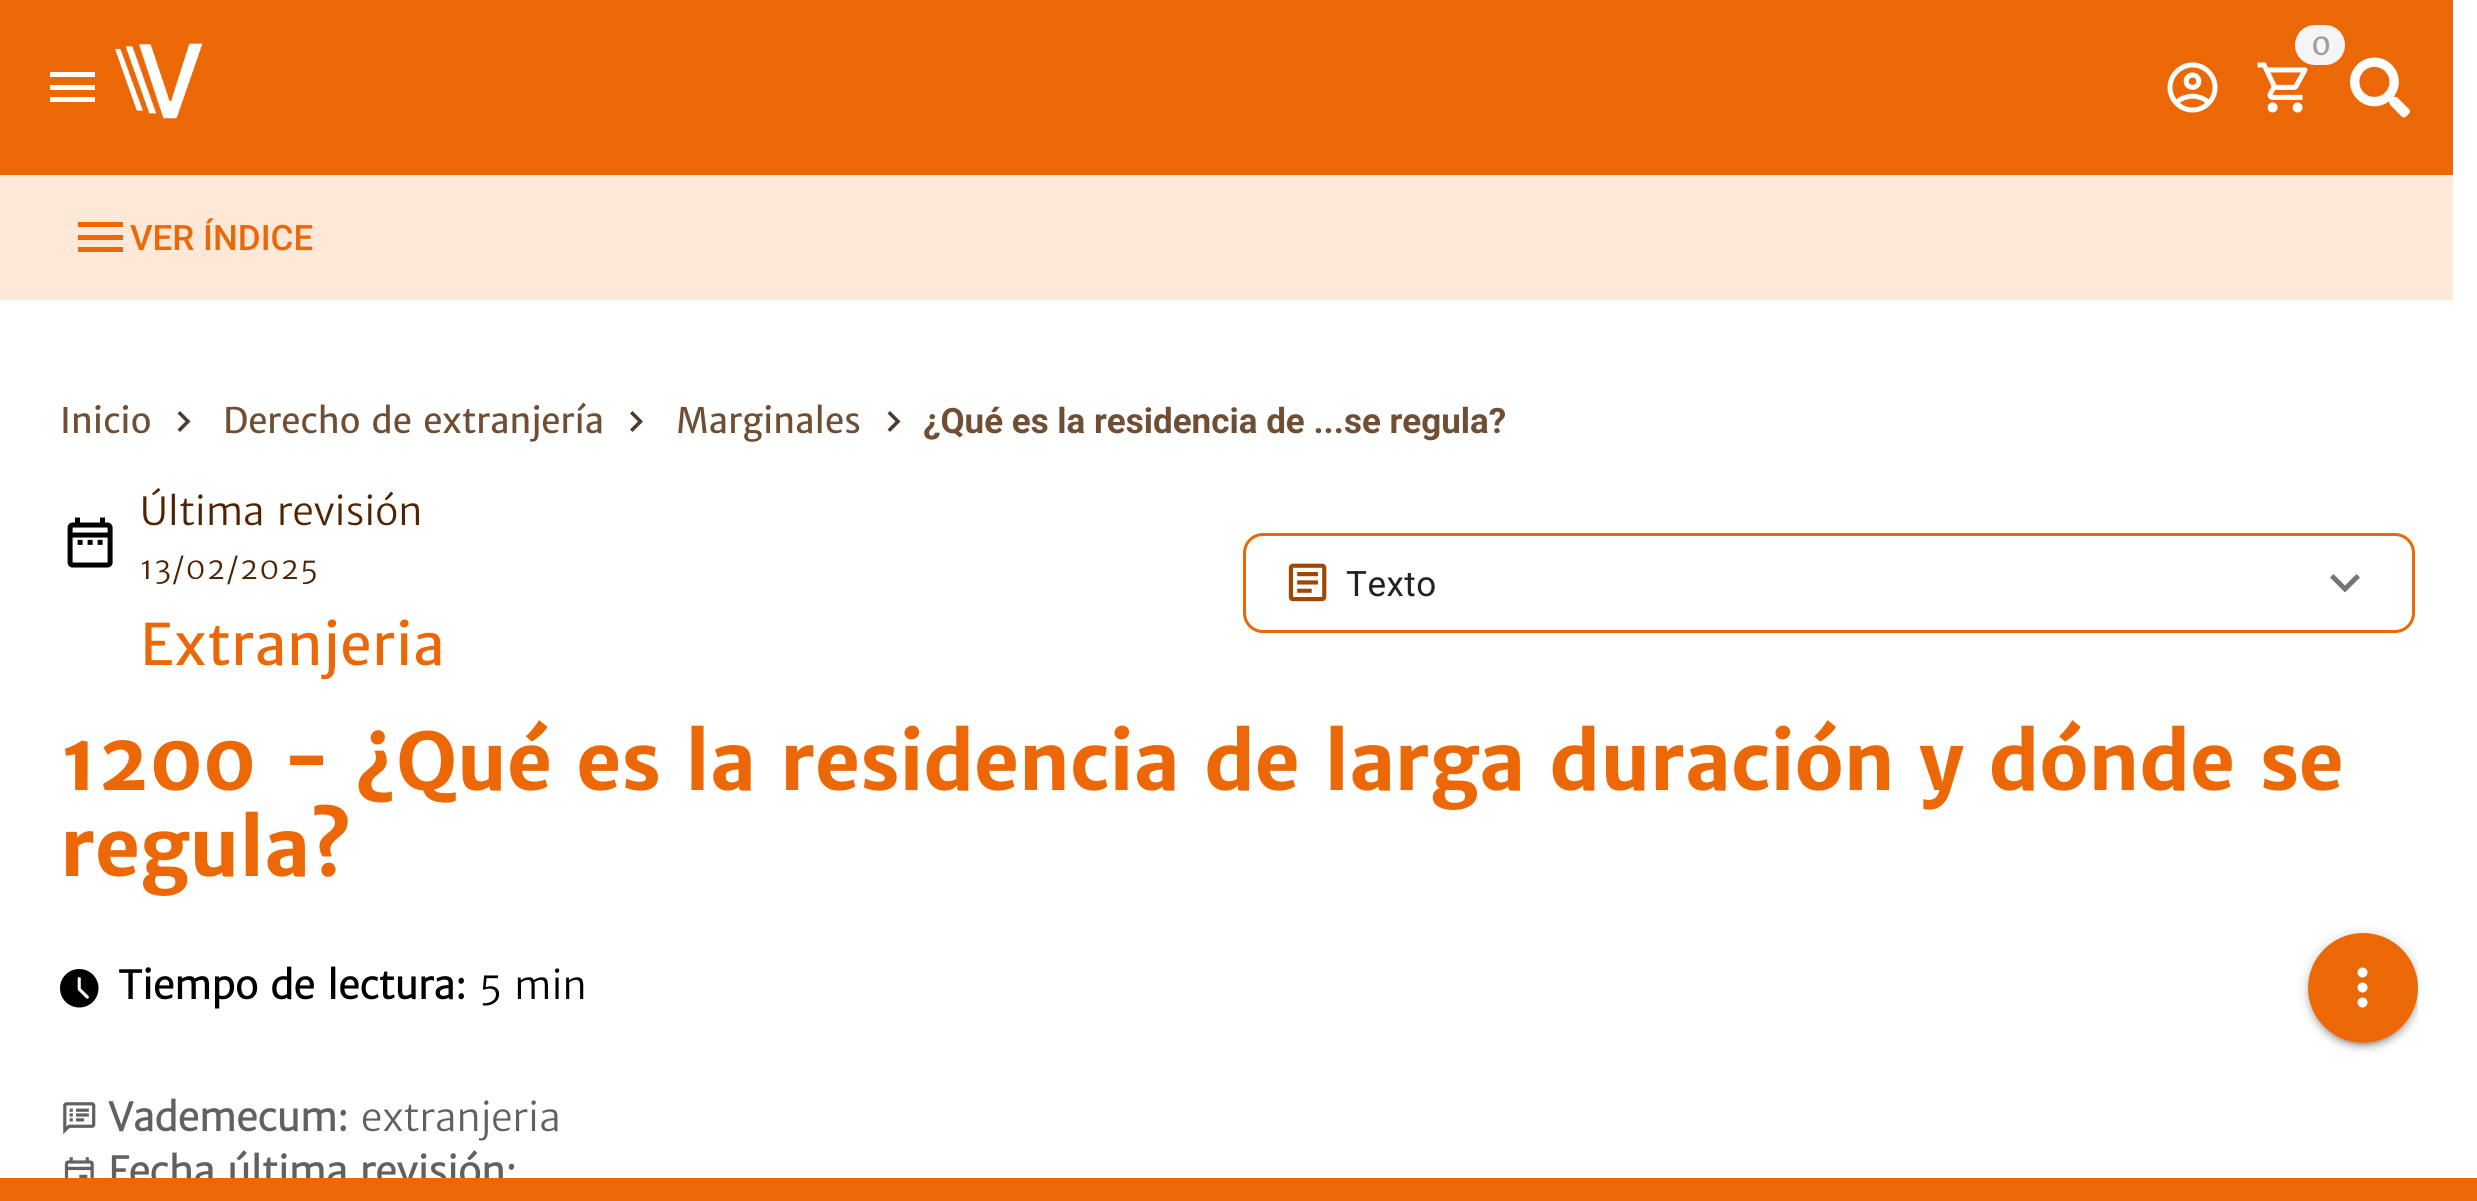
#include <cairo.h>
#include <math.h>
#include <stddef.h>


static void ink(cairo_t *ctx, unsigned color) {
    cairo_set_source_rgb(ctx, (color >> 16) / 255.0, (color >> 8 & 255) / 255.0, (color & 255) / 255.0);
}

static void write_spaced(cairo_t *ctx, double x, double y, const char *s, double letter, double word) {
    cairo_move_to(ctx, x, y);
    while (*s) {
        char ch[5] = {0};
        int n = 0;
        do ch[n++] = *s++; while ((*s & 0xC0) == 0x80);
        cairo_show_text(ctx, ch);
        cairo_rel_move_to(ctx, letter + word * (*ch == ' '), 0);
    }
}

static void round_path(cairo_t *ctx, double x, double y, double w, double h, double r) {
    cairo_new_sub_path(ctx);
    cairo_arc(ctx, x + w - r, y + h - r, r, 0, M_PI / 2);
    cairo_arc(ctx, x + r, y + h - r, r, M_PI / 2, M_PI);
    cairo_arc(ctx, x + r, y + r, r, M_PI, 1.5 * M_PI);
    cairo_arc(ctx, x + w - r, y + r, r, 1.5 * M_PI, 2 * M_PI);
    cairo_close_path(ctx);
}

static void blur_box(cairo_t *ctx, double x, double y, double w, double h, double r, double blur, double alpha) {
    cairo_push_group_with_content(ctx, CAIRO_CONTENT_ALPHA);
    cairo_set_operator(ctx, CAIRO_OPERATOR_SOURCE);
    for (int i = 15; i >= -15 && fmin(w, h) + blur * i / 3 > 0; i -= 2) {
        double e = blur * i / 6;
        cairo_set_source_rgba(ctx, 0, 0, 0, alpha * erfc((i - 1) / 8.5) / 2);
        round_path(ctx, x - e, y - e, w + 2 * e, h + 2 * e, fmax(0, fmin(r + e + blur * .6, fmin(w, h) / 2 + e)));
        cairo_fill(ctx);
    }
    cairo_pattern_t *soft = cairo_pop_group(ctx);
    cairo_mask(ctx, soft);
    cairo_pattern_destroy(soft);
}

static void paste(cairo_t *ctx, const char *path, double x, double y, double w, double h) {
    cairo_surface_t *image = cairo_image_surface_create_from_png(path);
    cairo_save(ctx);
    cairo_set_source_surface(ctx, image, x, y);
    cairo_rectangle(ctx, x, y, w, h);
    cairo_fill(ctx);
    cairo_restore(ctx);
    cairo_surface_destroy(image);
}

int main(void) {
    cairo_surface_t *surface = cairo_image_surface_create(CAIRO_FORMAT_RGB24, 2477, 1201);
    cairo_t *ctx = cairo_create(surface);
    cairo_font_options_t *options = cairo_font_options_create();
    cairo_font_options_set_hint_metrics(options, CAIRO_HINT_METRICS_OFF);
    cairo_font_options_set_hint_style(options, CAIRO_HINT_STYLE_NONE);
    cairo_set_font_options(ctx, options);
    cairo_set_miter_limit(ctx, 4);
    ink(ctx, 0xFFFFFF);
    cairo_paint(ctx);
    ink(ctx, 0xEC6806);
    cairo_rectangle(ctx, 0, 0, 2453, 175);
    cairo_fill(ctx);
    ink(ctx, 0xFFFFFF);
    cairo_new_path(ctx);
    cairo_move_to(ctx, 50, 102);
    cairo_line_to(ctx, 95, 102);
    cairo_line_to(ctx, 95, 97);
    cairo_line_to(ctx, 50, 97);
    cairo_close_path(ctx);
    cairo_move_to(ctx, 50, 90);
    cairo_line_to(ctx, 95, 90);
    cairo_line_to(ctx, 95, 85);
    cairo_line_to(ctx, 50, 85);
    cairo_close_path(ctx);
    cairo_move_to(ctx, 50, 72);
    cairo_line_to(ctx, 50, 77);
    cairo_line_to(ctx, 95, 77);
    cairo_line_to(ctx, 95, 72);
    cairo_close_path(ctx);
    cairo_fill(ctx);
    paste(ctx, "media/1.png", 115, 43, 88, 76);
    paste(ctx, "media/2.png", 2257, 62, 51, 51);
    ink(ctx, 0xF5F5F5);
    round_path(ctx, 2295, 25, 50, 40, 20);
    cairo_fill(ctx);
    cairo_select_font_face(ctx, "Merriweather Sans", CAIRO_FONT_SLANT_NORMAL, CAIRO_FONT_WEIGHT_NORMAL);
    cairo_set_font_size(ctx, 30);
    ink(ctx, 0x9E9E9E);
    cairo_move_to(ctx, 2311, 55);
    cairo_show_text(ctx, "0");
    paste(ctx, "media/3.png", 2167, 62, 51, 51);
    paste(ctx, "media/4.png", 2350, 57, 60, 61);
    ink(ctx, 0xFEE8D7);
    cairo_rectangle(ctx, 0, 175, 2453, 125);
    cairo_fill(ctx);
    ink(ctx, 0xEC6806);
    cairo_new_path(ctx);
    cairo_move_to(ctx, 78, 252);
    cairo_line_to(ctx, 123, 252);
    cairo_line_to(ctx, 123, 247);
    cairo_line_to(ctx, 78, 247);
    cairo_close_path(ctx);
    cairo_move_to(ctx, 78, 240);
    cairo_line_to(ctx, 123, 240);
    cairo_line_to(ctx, 123, 235);
    cairo_line_to(ctx, 78, 235);
    cairo_close_path(ctx);
    cairo_move_to(ctx, 78, 222);
    cairo_line_to(ctx, 78, 227);
    cairo_line_to(ctx, 123, 227);
    cairo_line_to(ctx, 123, 222);
    cairo_close_path(ctx);
    cairo_fill(ctx);
    cairo_select_font_face(ctx, "Roboto Medium", CAIRO_FONT_SLANT_NORMAL, CAIRO_FONT_WEIGHT_NORMAL);
    cairo_set_font_size(ctx, 35);
    cairo_move_to(ctx, 130, 250);
    cairo_show_text(ctx, "VER ÍNDICE");
    cairo_select_font_face(ctx, "Merriweather Sans", CAIRO_FONT_SLANT_NORMAL, CAIRO_FONT_WEIGHT_NORMAL);
    ink(ctx, 0x704E34);
    cairo_move_to(ctx, 60, 433);
    cairo_show_text(ctx, "Inicio");
    ink(ctx, 0x493C32);
    cairo_new_path(ctx);
    cairo_move_to(ctx, 177.5, 429.5);
    cairo_line_to(ctx, 185.5, 421.5);
    cairo_line_to(ctx, 177.5, 413.5);
    cairo_line_to(ctx, 180, 411);
    cairo_line_to(ctx, 190.5, 421.5);
    cairo_line_to(ctx, 180, 432);
    cairo_close_path(ctx);
    cairo_fill(ctx);
    ink(ctx, 0x704E34);
    cairo_move_to(ctx, 223, 433);
    cairo_show_text(ctx, "Derecho de extranjería");
    ink(ctx, 0x493C32);
    cairo_new_path(ctx);
    cairo_move_to(ctx, 630, 429.5);
    cairo_line_to(ctx, 638, 421.5);
    cairo_line_to(ctx, 630, 413.5);
    cairo_line_to(ctx, 632.5, 411);
    cairo_line_to(ctx, 643, 421.5);
    cairo_line_to(ctx, 632.5, 432);
    cairo_close_path(ctx);
    cairo_fill(ctx);
    ink(ctx, 0x704E34);
    cairo_move_to(ctx, 676, 433);
    cairo_show_text(ctx, "Marginales");
    ink(ctx, 0x493C32);
    cairo_new_path(ctx);
    cairo_move_to(ctx, 887.5, 429.5);
    cairo_line_to(ctx, 895.5, 421.5);
    cairo_line_to(ctx, 887.5, 413.5);
    cairo_line_to(ctx, 890, 411);
    cairo_line_to(ctx, 900.5, 421.5);
    cairo_line_to(ctx, 890, 432);
    cairo_close_path(ctx);
    cairo_fill(ctx);
    cairo_select_font_face(ctx, "Roboto", CAIRO_FONT_SLANT_NORMAL, CAIRO_FONT_WEIGHT_BOLD);
    ink(ctx, 0x704E34);
    cairo_move_to(ctx, 923, 433);
    cairo_show_text(ctx, "¿Qué es la residencia de ...se regula?");
    paste(ctx, "media/5.png", 67, 517, 46, 51);
    cairo_select_font_face(ctx, "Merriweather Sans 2", CAIRO_FONT_SLANT_NORMAL, CAIRO_FONT_WEIGHT_NORMAL);
    cairo_set_font_size(ctx, 38.5);
    ink(ctx, 0x502402);
    cairo_move_to(ctx, 140, 525);
    cairo_show_text(ctx, "Última revisión");
    cairo_set_font_size(ctx, 30);
    write_spaced(ctx, 140, 579, "13/02/2025", 1, 0);
    cairo_select_font_face(ctx, "Merriweather Sans", CAIRO_FONT_SLANT_NORMAL, CAIRO_FONT_WEIGHT_NORMAL);
    cairo_set_font_size(ctx, 57);
    ink(ctx, 0xEC6806);
    write_spaced(ctx, 140, 665, "Extranjeria", 0.75, 0);
    round_path(ctx, 1244.5, 534.5, 1169, 97, 18.5);
    cairo_set_line_width(ctx, 3);
    cairo_stroke(ctx);
    paste(ctx, "media/6.png", 1288, 563, 39, 39);
    cairo_select_font_face(ctx, "Roboto", CAIRO_FONT_SLANT_NORMAL, CAIRO_FONT_WEIGHT_NORMAL);
    cairo_set_font_size(ctx, 35);
    ink(ctx, 0x212121);
    write_spaced(ctx, 1346, 596, "Texto", 0.5, 0);
    ink(ctx, 0x757575);
    cairo_new_path(ctx);
    cairo_move_to(ctx, 2333.5, 574);
    cairo_line_to(ctx, 2345, 585.5);
    cairo_line_to(ctx, 2356.5, 574);
    cairo_line_to(ctx, 2360, 577.5);
    cairo_line_to(ctx, 2345, 592.5);
    cairo_line_to(ctx, 2330, 577.5);
    cairo_close_path(ctx);
    cairo_fill(ctx);
    cairo_select_font_face(ctx, "Merriweather Sans", CAIRO_FONT_SLANT_NORMAL, CAIRO_FONT_WEIGHT_BOLD);
    cairo_set_font_size(ctx, 79.25);
    ink(ctx, 0xEC6806);
    write_spaced(ctx, 60, 790, "1200 - ¿Qué es la residencia de larga duración y dónde se", -1.25, 0);
    write_spaced(ctx, 60, 876, "regula?", -1.25, 0);
    paste(ctx, "media/7.png", 60, 969, 39, 39);
    cairo_select_font_face(ctx, "Merriweather Sans 2", CAIRO_FONT_SLANT_NORMAL, CAIRO_FONT_WEIGHT_BOLD);
    cairo_set_font_size(ctx, 38.5);
    ink(ctx, 0x000000);
    cairo_move_to(ctx, 118, 999);
    cairo_show_text(ctx, "Tiempo de lectura:");
    cairo_select_font_face(ctx, "Merriweather Sans 2", CAIRO_FONT_SLANT_NORMAL, CAIRO_FONT_WEIGHT_NORMAL);
    cairo_move_to(ctx, 479, 999);
    cairo_show_text(ctx, "5 min");
    ink(ctx, 0xEC6806);
    cairo_new_path(ctx);
    cairo_arc(ctx, 2363, 988, 55, 0, 2 * M_PI);
    cairo_fill(ctx);
    cairo_save(ctx);
    cairo_set_fill_rule(ctx, CAIRO_FILL_RULE_EVEN_ODD);
    cairo_new_path(ctx);
    cairo_move_to(ctx, 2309, 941);
    cairo_line_to(ctx, 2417, 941);
    cairo_line_to(ctx, 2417, 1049);
    cairo_line_to(ctx, 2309, 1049);
    cairo_close_path(ctx);
    cairo_move_to(ctx, 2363, 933);
    cairo_curve_to(ctx, 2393.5, 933, 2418, 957.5, 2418, 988);
    cairo_curve_to(ctx, 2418, 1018.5, 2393.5, 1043, 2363, 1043);
    cairo_curve_to(ctx, 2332.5, 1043, 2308, 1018.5, 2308, 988);
    cairo_curve_to(ctx, 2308, 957.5, 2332.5, 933, 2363, 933);
    cairo_close_path(ctx);
    cairo_clip(ctx);
    ink(ctx, 0x000000);
    blur_box(ctx, 2313, 945, 100, 100, 50, 1, 0.12);
    cairo_restore(ctx);
    cairo_save(ctx);
    cairo_rectangle(ctx, 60, 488, 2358, 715);
    cairo_clip(ctx);
    cairo_set_fill_rule(ctx, CAIRO_FILL_RULE_EVEN_ODD);
    cairo_new_path(ctx);
    cairo_move_to(ctx, 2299, 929);
    cairo_line_to(ctx, 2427, 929);
    cairo_line_to(ctx, 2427, 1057);
    cairo_line_to(ctx, 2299, 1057);
    cairo_close_path(ctx);
    cairo_move_to(ctx, 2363, 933);
    cairo_curve_to(ctx, 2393.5, 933, 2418, 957.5, 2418, 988);
    cairo_curve_to(ctx, 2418, 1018.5, 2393.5, 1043, 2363, 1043);
    cairo_curve_to(ctx, 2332.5, 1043, 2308, 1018.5, 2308, 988);
    cairo_curve_to(ctx, 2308, 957.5, 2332.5, 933, 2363, 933);
    cairo_close_path(ctx);
    cairo_clip(ctx);
    ink(ctx, 0x000000);
    blur_box(ctx, 2308, 938, 110, 110, 55, 2.5, 0.14);
    cairo_restore(ctx);
    cairo_save(ctx);
    cairo_rectangle(ctx, 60, 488, 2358, 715);
    cairo_clip(ctx);
    cairo_set_fill_rule(ctx, CAIRO_FILL_RULE_EVEN_ODD);
    cairo_new_path(ctx);
    cairo_move_to(ctx, 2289, 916);
    cairo_line_to(ctx, 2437, 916);
    cairo_line_to(ctx, 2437, 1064);
    cairo_line_to(ctx, 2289, 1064);
    cairo_close_path(ctx);
    cairo_move_to(ctx, 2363, 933);
    cairo_curve_to(ctx, 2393.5, 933, 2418, 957.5, 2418, 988);
    cairo_curve_to(ctx, 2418, 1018.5, 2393.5, 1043, 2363, 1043);
    cairo_curve_to(ctx, 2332.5, 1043, 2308, 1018.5, 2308, 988);
    cairo_curve_to(ctx, 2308, 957.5, 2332.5, 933, 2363, 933);
    cairo_close_path(ctx);
    cairo_clip(ctx);
    ink(ctx, 0x000000);
    blur_box(ctx, 2308, 935, 110, 110, 55, 6, 0.2);
    cairo_restore(ctx);
    paste(ctx, "media/8.png", 2357, 967, 11, 41);
    paste(ctx, "media/9.png", 63, 1102, 33, 33);
    cairo_select_font_face(ctx, "Merriweather Sans 2", CAIRO_FONT_SLANT_NORMAL, CAIRO_FONT_WEIGHT_BOLD);
    ink(ctx, 0x616161);
    cairo_move_to(ctx, 108, 1131);
    cairo_show_text(ctx, "Vademecum:");
    cairo_select_font_face(ctx, "Merriweather Sans 2", CAIRO_FONT_SLANT_NORMAL, CAIRO_FONT_WEIGHT_NORMAL);
    cairo_move_to(ctx, 361, 1131);
    cairo_show_text(ctx, "extranjeria");
    paste(ctx, "media/10.png", 64, 1157, 30, 21);
    cairo_select_font_face(ctx, "Merriweather Sans 2", CAIRO_FONT_SLANT_NORMAL, CAIRO_FONT_WEIGHT_BOLD);
    cairo_move_to(ctx, 108, 1185);
    cairo_show_text(ctx, "Fecha última revisión:");
    ink(ctx, 0xEC6806);
    cairo_rectangle(ctx, 0, 1178, 2477, 23);
    cairo_fill(ctx);
    cairo_surface_write_to_png(surface, "image.png");
    cairo_font_options_destroy(options);
    cairo_destroy(ctx);
    cairo_surface_destroy(surface);
    return 0;
}
